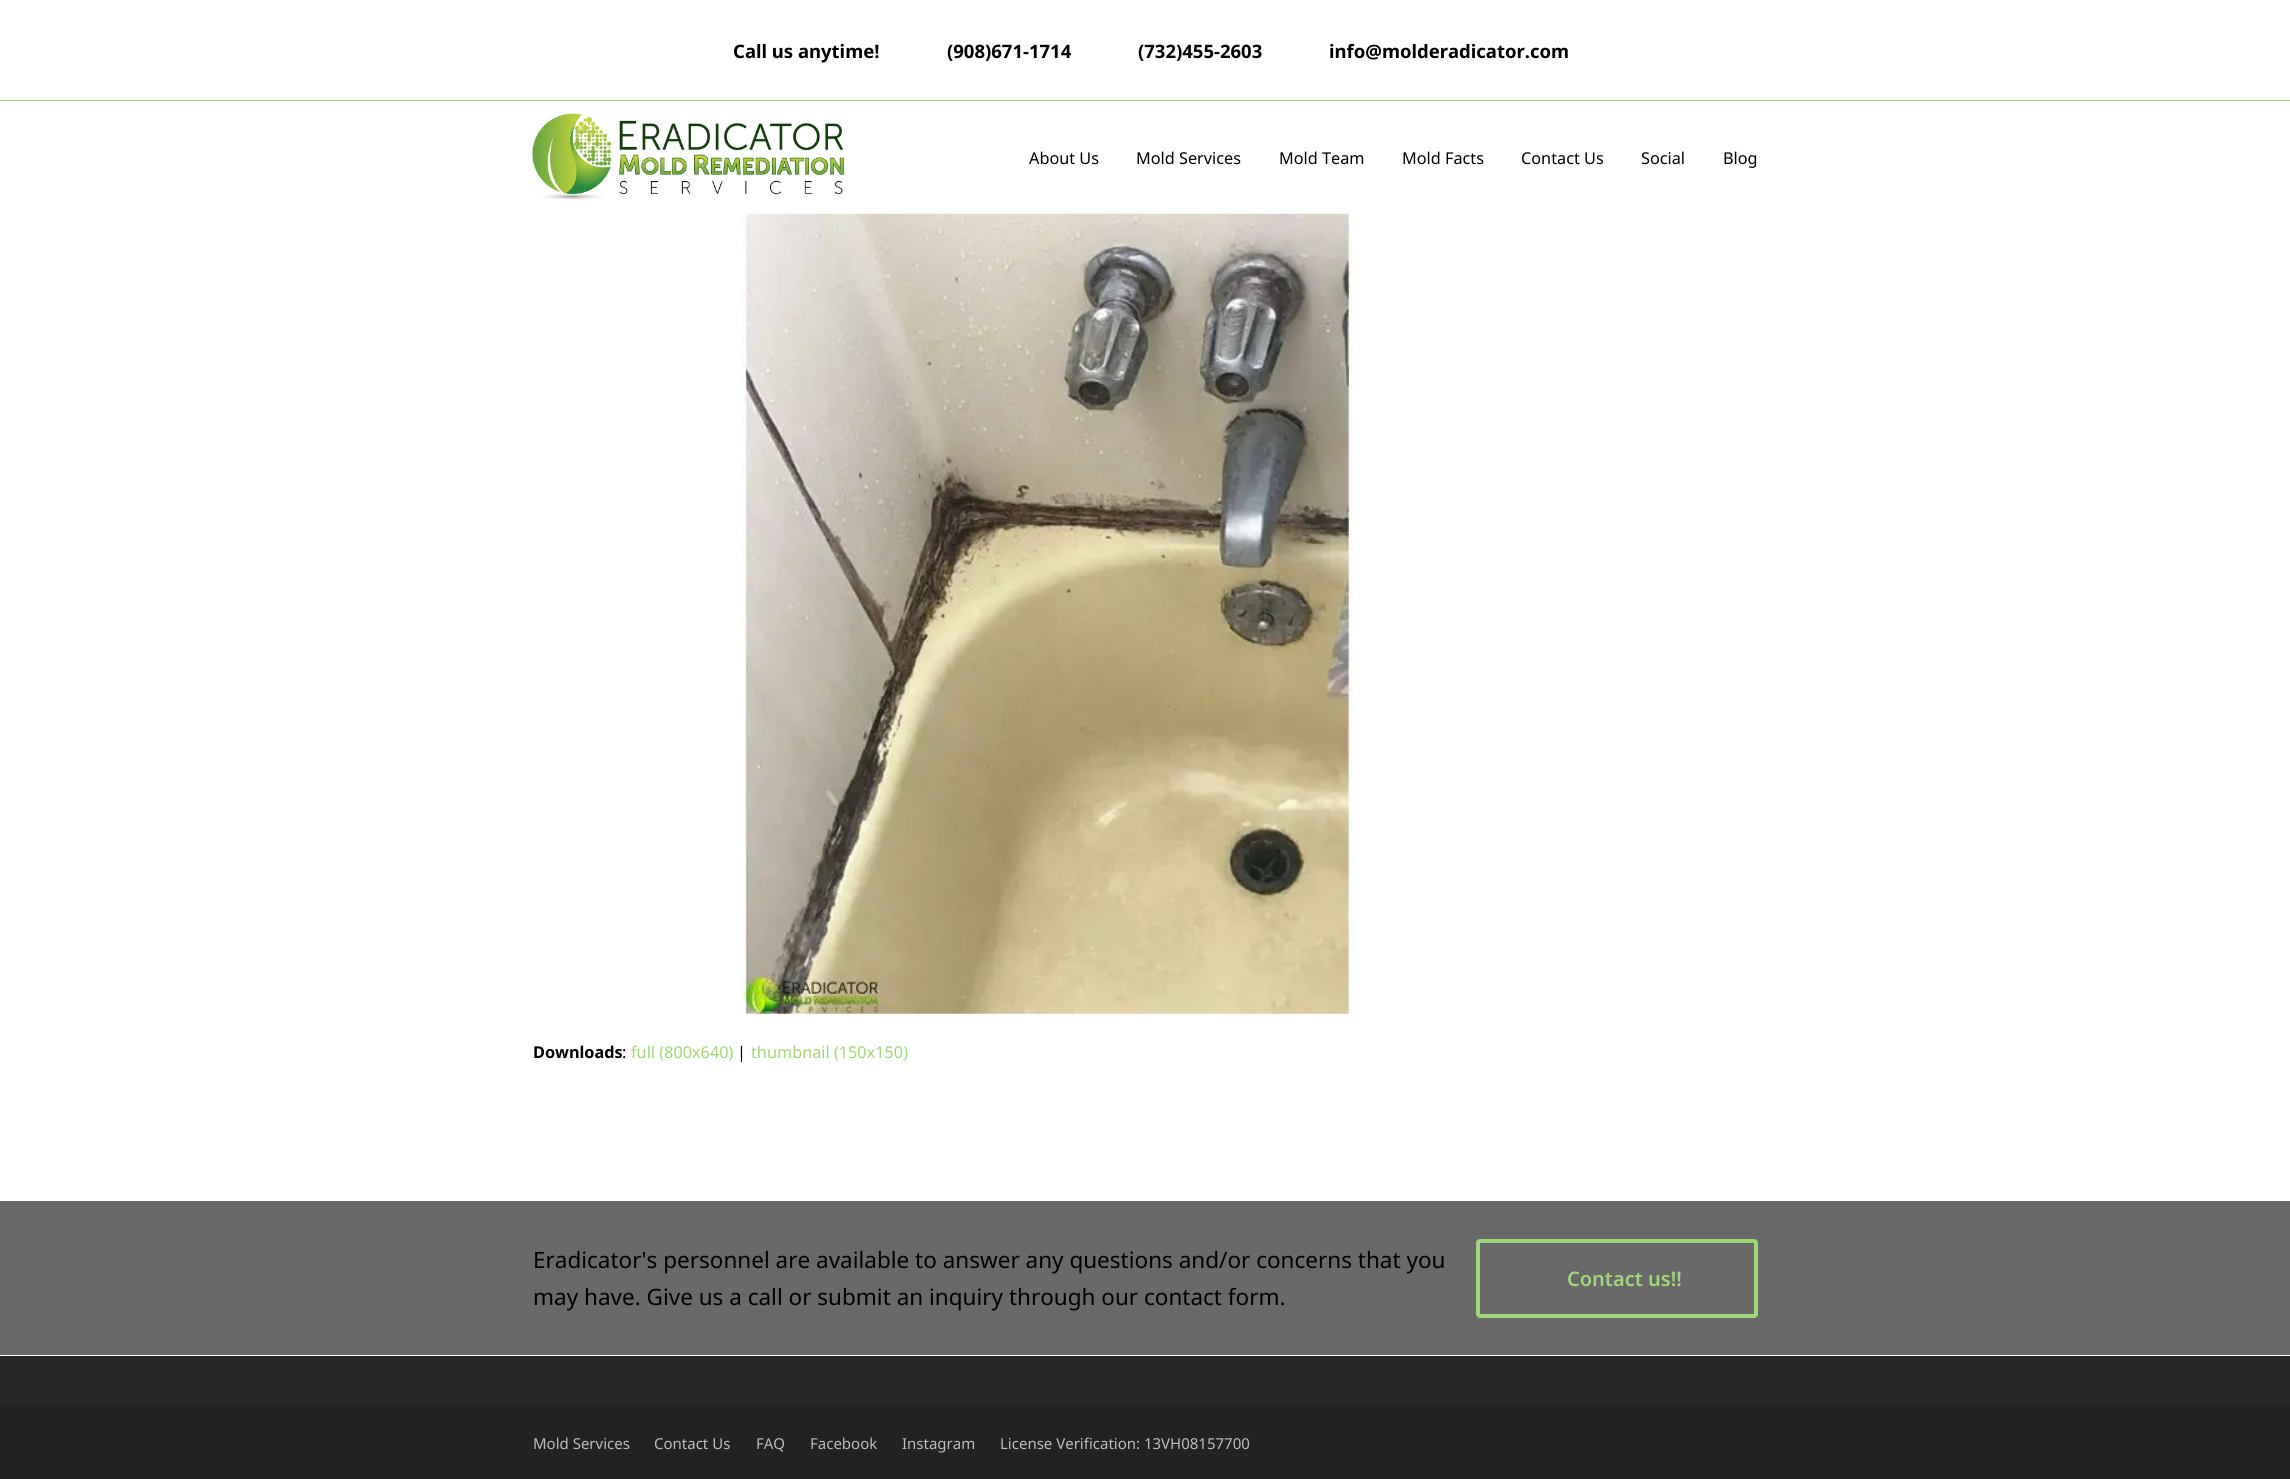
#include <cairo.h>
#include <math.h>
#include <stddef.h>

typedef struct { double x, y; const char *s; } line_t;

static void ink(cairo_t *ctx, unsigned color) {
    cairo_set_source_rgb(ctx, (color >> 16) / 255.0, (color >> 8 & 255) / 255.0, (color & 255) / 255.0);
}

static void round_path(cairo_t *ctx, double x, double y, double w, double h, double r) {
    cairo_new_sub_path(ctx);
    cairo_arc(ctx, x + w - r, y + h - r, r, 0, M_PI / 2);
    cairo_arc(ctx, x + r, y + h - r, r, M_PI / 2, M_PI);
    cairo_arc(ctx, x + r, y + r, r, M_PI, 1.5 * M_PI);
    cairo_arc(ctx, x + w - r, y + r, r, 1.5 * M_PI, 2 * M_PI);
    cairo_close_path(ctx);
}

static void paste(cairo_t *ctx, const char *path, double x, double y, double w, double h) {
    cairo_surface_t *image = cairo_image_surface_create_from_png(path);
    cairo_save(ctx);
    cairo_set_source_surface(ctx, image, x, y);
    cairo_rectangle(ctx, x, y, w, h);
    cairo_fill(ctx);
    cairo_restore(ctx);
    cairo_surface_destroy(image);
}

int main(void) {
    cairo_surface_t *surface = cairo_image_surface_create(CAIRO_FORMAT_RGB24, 2290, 1479);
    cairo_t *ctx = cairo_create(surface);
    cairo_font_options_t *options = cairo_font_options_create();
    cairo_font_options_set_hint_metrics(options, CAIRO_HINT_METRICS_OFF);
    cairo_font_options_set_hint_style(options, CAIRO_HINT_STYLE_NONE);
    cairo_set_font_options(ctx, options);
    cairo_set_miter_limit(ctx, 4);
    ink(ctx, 0xFFFFFF);
    cairo_paint(ctx);
    ink(ctx, 0x9FD677);
    cairo_rectangle(ctx, 0, 100, 2290, 1);
    cairo_fill(ctx);
    cairo_select_font_face(ctx, "Noto Sans", CAIRO_FONT_SLANT_NORMAL, CAIRO_FONT_WEIGHT_BOLD);
    cairo_set_font_size(ctx, 18.5);
    ink(ctx, 0x000000);
    {
        static const line_t items[] = {
            {733, 58, "Call us anytime!"},
            {947, 58, "(908)671-1714"},
            {1138, 58, "(732)455-2603"},
            {1329, 58, "info@molderadicator.com"},
        };
        for (size_t i = 0; i < sizeof items / sizeof *items; i++) {
            cairo_move_to(ctx, items[i].x, items[i].y);
            cairo_show_text(ctx, items[i].s);
        }
    }
    paste(ctx, "media/1.png", 532, 113, 312, 87);
    cairo_select_font_face(ctx, "Noto Sans", CAIRO_FONT_SLANT_NORMAL, CAIRO_FONT_WEIGHT_NORMAL);
    cairo_set_font_size(ctx, 16.25);
    {
        static const line_t items[] = {
            {1029, 164, "About Us"},
            {1136, 164, "Mold Services"},
            {1279, 164, "Mold Team"},
            {1402, 164, "Mold Facts"},
            {1521, 164, "Contact Us"},
            {1641, 164, "Social"},
            {1723, 164, "Blog"},
        };
        for (size_t i = 0; i < sizeof items / sizeof *items; i++) {
            cairo_move_to(ctx, items[i].x, items[i].y);
            cairo_show_text(ctx, items[i].s);
        }
    }
    paste(ctx, "media/2.png", 741, 213, 615, 801);
    cairo_select_font_face(ctx, "Noto Sans", CAIRO_FONT_SLANT_NORMAL, CAIRO_FONT_WEIGHT_BOLD);
    cairo_move_to(ctx, 533, 1058);
    cairo_show_text(ctx, "Downloads");
    cairo_select_font_face(ctx, "Noto Sans", CAIRO_FONT_SLANT_NORMAL, CAIRO_FONT_WEIGHT_NORMAL);
    cairo_move_to(ctx, 622, 1058);
    cairo_show_text(ctx, ":");
    ink(ctx, 0x9FD677);
    cairo_move_to(ctx, 631, 1058);
    cairo_show_text(ctx, "full (800x640)");
    ink(ctx, 0x000000);
    cairo_move_to(ctx, 737, 1058);
    cairo_show_text(ctx, "|");
    ink(ctx, 0x9FD677);
    cairo_move_to(ctx, 751, 1058);
    cairo_show_text(ctx, "thumbnail (150x150)");
    ink(ctx, 0x696969);
    cairo_rectangle(ctx, 0, 1201, 2290, 154);
    cairo_fill(ctx);
    cairo_set_font_size(ctx, 22.5);
    ink(ctx, 0x000000);
    cairo_move_to(ctx, 533, 1268);
    cairo_show_text(ctx, "Eradicator's personnel are available to answer any questions and/or concerns that you");
    cairo_move_to(ctx, 533, 1305);
    cairo_show_text(ctx, "may have. Give us a call or submit an inquiry through our contact form.");
    round_path(ctx, 1478, 1241, 278, 75, 2);
    ink(ctx, 0x9FD677);
    cairo_set_line_width(ctx, 4);
    cairo_stroke(ctx);
    cairo_select_font_face(ctx, "Noto Sans SemiBold", CAIRO_FONT_SLANT_NORMAL, CAIRO_FONT_WEIGHT_NORMAL);
    cairo_set_font_size(ctx, 20);
    cairo_move_to(ctx, 1567, 1286);
    cairo_show_text(ctx, "Contact us!!");
    ink(ctx, 0x262626);
    cairo_rectangle(ctx, 0, 1356, 2290, 50);
    cairo_fill(ctx);
    ink(ctx, 0x222222);
    cairo_rectangle(ctx, 0, 1406, 2290, 73);
    cairo_fill(ctx);
    cairo_select_font_face(ctx, "Noto Sans", CAIRO_FONT_SLANT_NORMAL, CAIRO_FONT_WEIGHT_NORMAL);
    cairo_set_font_size(ctx, 15);
    ink(ctx, 0xBDBDBD);
    {
        static const line_t items[] = {
            {533, 1449, "Mold Services"},
            {654, 1449, "Contact Us"},
            {756, 1449, "FAQ"},
            {810, 1449, "Facebook"},
            {902, 1449, "Instagram"},
            {1000, 1449, "License Verification: 13VH08157700"},
        };
        for (size_t i = 0; i < sizeof items / sizeof *items; i++) {
            cairo_move_to(ctx, items[i].x, items[i].y);
            cairo_show_text(ctx, items[i].s);
        }
    }
    cairo_surface_write_to_png(surface, "image.png");
    cairo_font_options_destroy(options);
    cairo_destroy(ctx);
    cairo_surface_destroy(surface);
    return 0;
}
